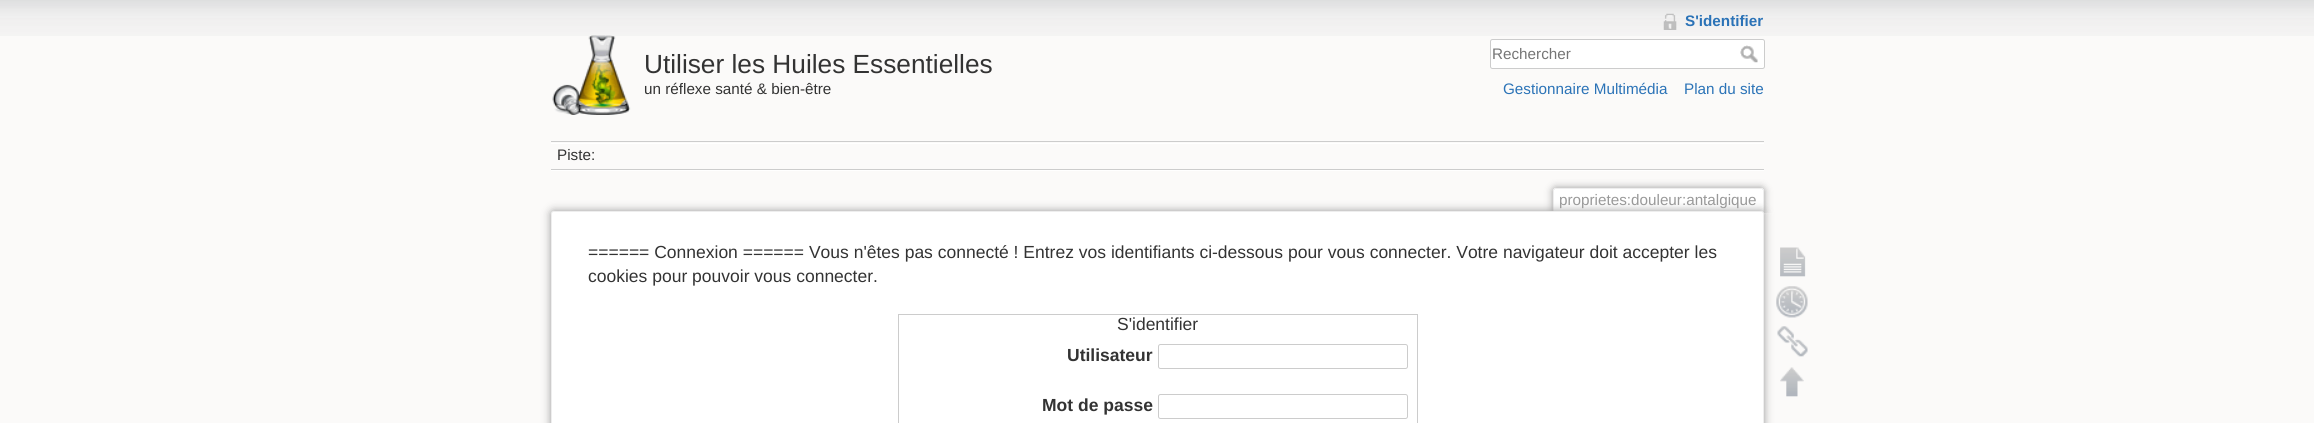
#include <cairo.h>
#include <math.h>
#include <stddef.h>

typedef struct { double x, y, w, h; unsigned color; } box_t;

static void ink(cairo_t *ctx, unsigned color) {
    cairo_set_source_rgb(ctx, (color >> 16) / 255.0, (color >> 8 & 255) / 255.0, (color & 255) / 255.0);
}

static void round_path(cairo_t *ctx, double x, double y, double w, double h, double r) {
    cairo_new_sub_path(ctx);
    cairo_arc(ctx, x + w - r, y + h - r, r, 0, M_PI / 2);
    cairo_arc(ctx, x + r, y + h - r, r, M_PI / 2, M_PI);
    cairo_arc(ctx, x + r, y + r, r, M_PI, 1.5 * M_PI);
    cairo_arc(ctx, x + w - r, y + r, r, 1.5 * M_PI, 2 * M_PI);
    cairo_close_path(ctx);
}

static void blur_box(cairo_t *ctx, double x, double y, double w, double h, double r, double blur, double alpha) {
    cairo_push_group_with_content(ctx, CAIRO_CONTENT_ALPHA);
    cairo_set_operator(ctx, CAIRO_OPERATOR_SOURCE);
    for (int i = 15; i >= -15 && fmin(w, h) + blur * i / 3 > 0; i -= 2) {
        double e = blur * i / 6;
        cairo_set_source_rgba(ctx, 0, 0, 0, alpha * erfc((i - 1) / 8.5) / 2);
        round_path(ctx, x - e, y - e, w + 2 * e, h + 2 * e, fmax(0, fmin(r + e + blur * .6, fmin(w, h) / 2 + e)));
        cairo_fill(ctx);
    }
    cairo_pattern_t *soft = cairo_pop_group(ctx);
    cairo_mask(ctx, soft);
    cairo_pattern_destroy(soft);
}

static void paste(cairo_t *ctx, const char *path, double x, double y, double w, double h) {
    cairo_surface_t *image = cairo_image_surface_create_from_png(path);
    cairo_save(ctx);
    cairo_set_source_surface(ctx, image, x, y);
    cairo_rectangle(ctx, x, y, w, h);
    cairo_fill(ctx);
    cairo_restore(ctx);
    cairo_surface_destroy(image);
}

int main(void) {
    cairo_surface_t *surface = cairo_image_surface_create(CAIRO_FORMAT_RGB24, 2314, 423);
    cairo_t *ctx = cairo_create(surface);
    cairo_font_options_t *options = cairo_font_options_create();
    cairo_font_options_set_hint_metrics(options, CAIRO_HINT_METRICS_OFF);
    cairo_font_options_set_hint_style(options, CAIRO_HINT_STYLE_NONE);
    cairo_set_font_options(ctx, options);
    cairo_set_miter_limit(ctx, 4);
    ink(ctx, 0xFBFAF9);
    cairo_paint(ctx);
    paste(ctx, "media/1.png", 0, 0, 2314, 36);
    paste(ctx, "media/2.png", 552, 35, 79, 80);
    cairo_select_font_face(ctx, "Liberation Sans", CAIRO_FONT_SLANT_NORMAL, CAIRO_FONT_WEIGHT_NORMAL);
    cairo_set_font_size(ctx, 26.25);
    ink(ctx, 0x333333);
    cairo_move_to(ctx, 644, 73);
    cairo_show_text(ctx, "Utiliser les Huiles Essentielles");
    cairo_set_font_size(ctx, 15.25);
    cairo_move_to(ctx, 644, 94);
    cairo_show_text(ctx, "un réflexe santé & bien-être");
    paste(ctx, "media/3.png", 1663, 13, 14, 17);
    cairo_select_font_face(ctx, "Liberation Sans", CAIRO_FONT_SLANT_NORMAL, CAIRO_FONT_WEIGHT_BOLD);
    ink(ctx, 0x2B73B7);
    cairo_move_to(ctx, 1685, 26);
    cairo_show_text(ctx, "S'identifier");
    ink(ctx, 0xFFFFFF);
    round_path(ctx, 1490.5, 39.5, 274, 29, 2);
    cairo_fill_preserve(ctx);
    ink(ctx, 0xCCCCCC);
    cairo_set_line_width(ctx, 1);
    cairo_stroke(ctx);
    cairo_select_font_face(ctx, "Liberation Sans", CAIRO_FONT_SLANT_NORMAL, CAIRO_FONT_WEIGHT_NORMAL);
    ink(ctx, 0x757575);
    cairo_move_to(ctx, 1492, 59);
    cairo_show_text(ctx, "Rechercher");
    paste(ctx, "media/4.png", 1740, 45, 18, 18);
    ink(ctx, 0x2B73B7);
    cairo_move_to(ctx, 1503, 94);
    cairo_show_text(ctx, "Gestionnaire Multimédia");
    cairo_move_to(ctx, 1684, 94);
    cairo_show_text(ctx, "Plan du site");
    {
        static const box_t items[] = {
            {551, 141, 1213, 1, 0xCCCCCC},
            {551, 170, 1213, 1, 0xFFFFFF},
            {551, 143, 1213, 1, 0xFFFFFF},
            {551, 169, 1213, 1, 0xCCCCCC},
        };
        for (size_t i = 0; i < sizeof items / sizeof *items; i++) {
            ink(ctx, items[i].color);
            cairo_rectangle(ctx, items[i].x, items[i].y, items[i].w, items[i].h);
            cairo_fill(ctx);
        }
    }
    ink(ctx, 0x333333);
    cairo_move_to(ctx, 557, 160);
    cairo_show_text(ctx, "Piste:");
    cairo_save(ctx);
    cairo_rectangle(ctx, 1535, 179, 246, 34);
    cairo_clip(ctx);
    ink(ctx, 0x999999);
    blur_box(ctx, 1553, 188, 211, 25, 2.5, 4, 1);
    cairo_restore(ctx);
    ink(ctx, 0xFFFFFF);
    cairo_new_path(ctx);
    cairo_move_to(ctx, 1555, 189);
    cairo_line_to(ctx, 1762, 189);
    cairo_curve_to(ctx, 1762.5, 189, 1763, 189.5, 1763, 190);
    cairo_line_to(ctx, 1763, 213);
    cairo_line_to(ctx, 1554, 213);
    cairo_line_to(ctx, 1554, 190);
    cairo_curve_to(ctx, 1554, 189.5, 1554.5, 189, 1555, 189);
    cairo_close_path(ctx);
    cairo_fill(ctx);
    {
        static const box_t items[] = {
            {1554, 188, 209, 1, 0xEEEEEE},
            {1763, 189, 1, 24, 0xEEEEEE},
            {1553, 189, 1, 24, 0xEEEEEE},
        };
        for (size_t i = 0; i < sizeof items / sizeof *items; i++) {
            ink(ctx, items[i].color);
            cairo_rectangle(ctx, items[i].x, items[i].y, items[i].w, items[i].h);
            cairo_fill(ctx);
        }
    }
    ink(ctx, 0x999999);
    cairo_move_to(ctx, 1559, 205);
    cairo_show_text(ctx, "proprietes:douleur:antalgique");
    ink(ctx, 0x999999);
    blur_box(ctx, 551, 211, 1213, 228, 2.5, 4.5, 1);
    ink(ctx, 0xFFFFFF);
    round_path(ctx, 551.5, 211.5, 1212, 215, 2);
    cairo_fill_preserve(ctx);
    ink(ctx, 0xEEEEEE);
    cairo_stroke(ctx);
    cairo_set_font_size(ctx, 17.5);
    ink(ctx, 0x333333);
    cairo_move_to(ctx, 588, 258);
    cairo_show_text(ctx, "====== Connexion ====== Vous n'êtes pas connecté ! Entrez vos identifiants ci-dessous pour vous connecter. Votre navigateur doit accepter les");
    cairo_move_to(ctx, 588, 282);
    cairo_show_text(ctx, "cookies pour pouvoir vous connecter.");
    cairo_rectangle(ctx, 898.5, 314.5, 519, 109);
    ink(ctx, 0xCCCCCC);
    cairo_stroke(ctx);
    ink(ctx, 0x333333);
    cairo_move_to(ctx, 1117, 330);
    cairo_show_text(ctx, "S'identifier");
    cairo_select_font_face(ctx, "Liberation Sans", CAIRO_FONT_SLANT_NORMAL, CAIRO_FONT_WEIGHT_BOLD);
    cairo_move_to(ctx, 1067, 361);
    cairo_show_text(ctx, "Utilisateur");
    round_path(ctx, 1158.5, 344.5, 249, 24, 2);
    ink(ctx, 0xCCCCCC);
    cairo_stroke(ctx);
    ink(ctx, 0x333333);
    cairo_move_to(ctx, 1042, 411);
    cairo_show_text(ctx, "Mot de passe");
    round_path(ctx, 1158.5, 394.5, 249, 24, 2);
    ink(ctx, 0xCCCCCC);
    cairo_stroke(ctx);
    paste(ctx, "media/5.png", 1780, 247, 26, 30);
    paste(ctx, "media/6.png", 1776, 286, 32, 32);
    paste(ctx, "media/7.png", 1777, 326, 31, 31);
    paste(ctx, "media/8.png", 1780, 367, 24, 30);
    cairo_surface_write_to_png(surface, "image.png");
    cairo_font_options_destroy(options);
    cairo_destroy(ctx);
    cairo_surface_destroy(surface);
    return 0;
}
